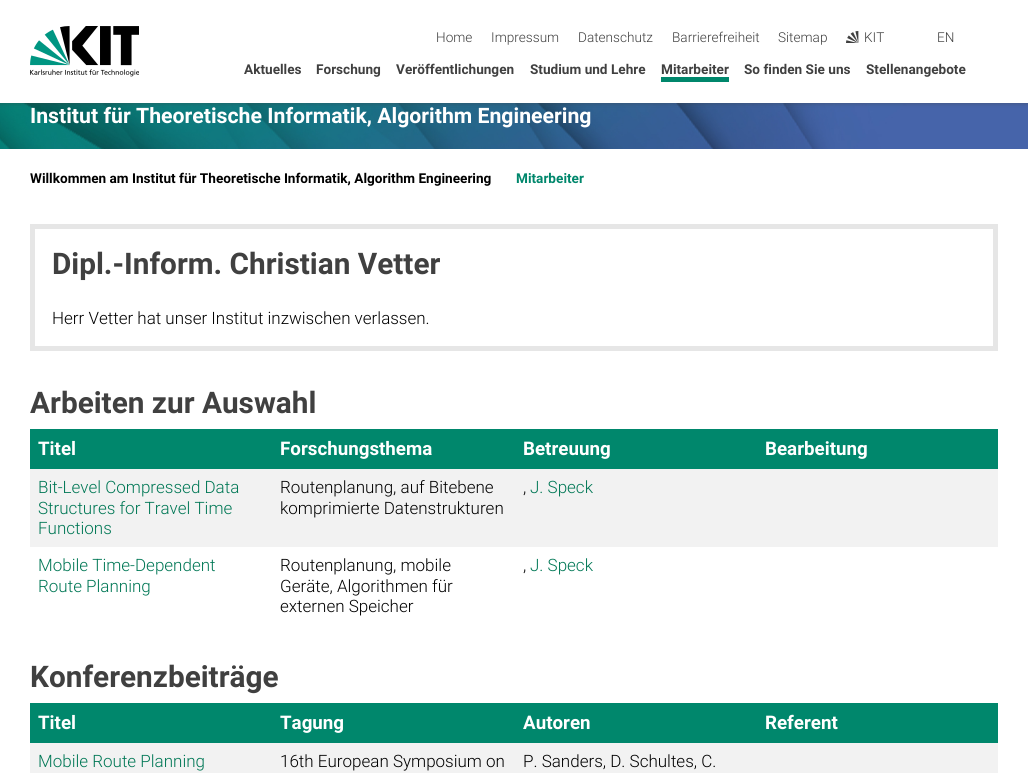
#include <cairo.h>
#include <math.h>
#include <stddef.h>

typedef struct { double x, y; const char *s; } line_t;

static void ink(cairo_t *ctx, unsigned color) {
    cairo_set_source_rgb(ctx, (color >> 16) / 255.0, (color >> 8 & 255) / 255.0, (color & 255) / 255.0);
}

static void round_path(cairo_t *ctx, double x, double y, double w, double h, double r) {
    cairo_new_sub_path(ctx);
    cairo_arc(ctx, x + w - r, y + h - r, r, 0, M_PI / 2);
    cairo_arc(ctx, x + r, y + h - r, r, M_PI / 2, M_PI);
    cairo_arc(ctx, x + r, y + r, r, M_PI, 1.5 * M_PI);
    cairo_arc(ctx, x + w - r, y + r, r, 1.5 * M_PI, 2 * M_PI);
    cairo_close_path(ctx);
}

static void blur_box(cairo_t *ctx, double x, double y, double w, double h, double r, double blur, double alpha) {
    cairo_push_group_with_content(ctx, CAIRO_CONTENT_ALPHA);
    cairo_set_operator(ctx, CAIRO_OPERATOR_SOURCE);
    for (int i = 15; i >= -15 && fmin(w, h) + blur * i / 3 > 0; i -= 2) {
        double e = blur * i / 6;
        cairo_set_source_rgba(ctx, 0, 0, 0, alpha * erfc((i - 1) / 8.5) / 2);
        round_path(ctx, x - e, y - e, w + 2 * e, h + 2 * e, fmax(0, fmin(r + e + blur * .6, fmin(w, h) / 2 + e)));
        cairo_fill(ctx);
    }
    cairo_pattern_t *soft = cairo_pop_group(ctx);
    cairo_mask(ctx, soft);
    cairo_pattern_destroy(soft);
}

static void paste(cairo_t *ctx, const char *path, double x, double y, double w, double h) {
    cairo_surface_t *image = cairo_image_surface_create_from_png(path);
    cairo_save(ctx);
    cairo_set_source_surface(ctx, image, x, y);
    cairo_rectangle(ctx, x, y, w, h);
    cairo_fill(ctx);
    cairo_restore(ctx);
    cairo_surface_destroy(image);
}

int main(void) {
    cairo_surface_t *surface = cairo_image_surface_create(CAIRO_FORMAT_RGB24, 1028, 773);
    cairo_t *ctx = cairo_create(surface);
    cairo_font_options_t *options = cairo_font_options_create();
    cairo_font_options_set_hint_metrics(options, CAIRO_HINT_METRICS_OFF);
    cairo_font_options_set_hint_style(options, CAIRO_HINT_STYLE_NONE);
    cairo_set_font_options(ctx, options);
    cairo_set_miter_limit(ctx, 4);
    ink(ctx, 0xFFFFFF);
    cairo_paint(ctx);
    paste(ctx, "media/3.png", 0, 103, 1028, 46);
    ink(ctx, 0x404040);
    blur_box(ctx, 0, 0, 1028, 103, 0, 2.5, 0.5);
    ink(ctx, 0xFFFFFF);
    cairo_rectangle(ctx, 0, 0, 1028, 103);
    cairo_fill(ctx);
    paste(ctx, "media/1.png", 30, 26, 109, 51);
    cairo_select_font_face(ctx, "Roboto Light", CAIRO_FONT_SLANT_NORMAL, CAIRO_FONT_WEIGHT_NORMAL);
    cairo_set_font_size(ctx, 13.6);
    ink(ctx, 0x404040);
    {
        static const line_t items[] = {
            {436, 42, "Home"},
            {491, 42, "Impressum"},
            {578, 42, "Datenschutz"},
            {672, 42, "Barrierefreiheit"},
            {778, 42, "Sitemap"},
        };
        for (size_t i = 0; i < sizeof items / sizeof *items; i++) {
            cairo_move_to(ctx, items[i].x, items[i].y);
            cairo_show_text(ctx, items[i].s);
        }
    }
    paste(ctx, "media/2.png", 846, 31, 13, 12);
    cairo_move_to(ctx, 864, 42);
    cairo_show_text(ctx, "KIT");
    cairo_move_to(ctx, 937, 42);
    cairo_show_text(ctx, "EN");
    cairo_select_font_face(ctx, "Roboto", CAIRO_FONT_SLANT_NORMAL, CAIRO_FONT_WEIGHT_BOLD);
    {
        static const line_t items[] = {
            {244, 74, "Aktuelles"},
            {316, 74, "Forschung"},
            {396, 74, "Veröffentlichungen"},
            {530, 74, "Studium und Lehre"},
            {661, 74, "Mitarbeiter"},
        };
        for (size_t i = 0; i < sizeof items / sizeof *items; i++) {
            cairo_move_to(ctx, items[i].x, items[i].y);
            cairo_show_text(ctx, items[i].s);
        }
    }
    ink(ctx, 0x00876C);
    cairo_rectangle(ctx, 661, 77, 68, 5);
    cairo_fill(ctx);
    ink(ctx, 0x404040);
    cairo_move_to(ctx, 744, 74);
    cairo_show_text(ctx, "So finden Sie uns");
    cairo_move_to(ctx, 866, 74);
    cairo_show_text(ctx, "Stellenangebote");
    cairo_set_font_size(ctx, 21.25);
    ink(ctx, 0xFFFFFF);
    cairo_move_to(ctx, 30, 123);
    cairo_show_text(ctx, "Institut für Theoretische Informatik, Algorithm Engineering");
    cairo_set_font_size(ctx, 13.6);
    ink(ctx, 0x000000);
    cairo_move_to(ctx, 30, 183);
    cairo_show_text(ctx, "Willkommen am Institut für Theoretische Informatik, Algorithm Engineering");
    ink(ctx, 0x00876C);
    cairo_move_to(ctx, 516, 183);
    cairo_show_text(ctx, "Mitarbeiter");
    cairo_rectangle(ctx, 32.5, 226.5, 963, 122);
    ink(ctx, 0xE6E6E6);
    cairo_set_line_width(ctx, 5);
    cairo_stroke(ctx);
    cairo_set_font_size(ctx, 29.75);
    ink(ctx, 0x404040);
    cairo_move_to(ctx, 52, 274);
    cairo_show_text(ctx, "Dipl.-Inform. Christian Vetter");
    cairo_select_font_face(ctx, "Roboto Light", CAIRO_FONT_SLANT_NORMAL, CAIRO_FONT_WEIGHT_NORMAL);
    cairo_set_font_size(ctx, 17);
    ink(ctx, 0x000000);
    cairo_move_to(ctx, 52, 324);
    cairo_show_text(ctx, "Herr Vetter hat unser Institut inzwischen verlassen.");
    cairo_select_font_face(ctx, "Roboto", CAIRO_FONT_SLANT_NORMAL, CAIRO_FONT_WEIGHT_BOLD);
    cairo_set_font_size(ctx, 29.75);
    ink(ctx, 0x404040);
    cairo_move_to(ctx, 30, 413);
    cairo_show_text(ctx, "Arbeiten zur Auswahl");
    ink(ctx, 0x00876C);
    cairo_rectangle(ctx, 30, 429, 968, 40);
    cairo_fill(ctx);
    cairo_set_font_size(ctx, 18.75);
    ink(ctx, 0xFFFFFF);
    {
        static const line_t items[] = {
            {38, 455, "Titel"},
            {280, 455, "Forschungsthema"},
            {523, 455, "Betreuung"},
            {765, 455, "Bearbeitung"},
        };
        for (size_t i = 0; i < sizeof items / sizeof *items; i++) {
            cairo_move_to(ctx, items[i].x, items[i].y);
            cairo_show_text(ctx, items[i].s);
        }
    }
    ink(ctx, 0xF2F2F2);
    cairo_rectangle(ctx, 30, 469, 968, 78);
    cairo_fill(ctx);
    cairo_select_font_face(ctx, "Roboto Light", CAIRO_FONT_SLANT_NORMAL, CAIRO_FONT_WEIGHT_NORMAL);
    cairo_set_font_size(ctx, 17);
    ink(ctx, 0x007755);
    {
        static const line_t items[] = {
            {38, 493, "Bit-Level Compressed Data"},
            {38, 514, "Structures for Travel Time"},
            {38, 534, "Functions"},
        };
        for (size_t i = 0; i < sizeof items / sizeof *items; i++) {
            cairo_move_to(ctx, items[i].x, items[i].y);
            cairo_show_text(ctx, items[i].s);
        }
    }
    ink(ctx, 0x000000);
    {
        static const line_t items[] = {
            {280, 493, "Routenplanung, auf Bitebene"},
            {280, 514, "komprimierte Datenstrukturen"},
            {523, 493, ","},
        };
        for (size_t i = 0; i < sizeof items / sizeof *items; i++) {
            cairo_move_to(ctx, items[i].x, items[i].y);
            cairo_show_text(ctx, items[i].s);
        }
    }
    ink(ctx, 0x007755);
    {
        static const line_t items[] = {
            {530, 493, "J. Speck"},
            {38, 571, "Mobile Time-Dependent"},
            {38, 592, "Route Planning"},
        };
        for (size_t i = 0; i < sizeof items / sizeof *items; i++) {
            cairo_move_to(ctx, items[i].x, items[i].y);
            cairo_show_text(ctx, items[i].s);
        }
    }
    ink(ctx, 0x000000);
    {
        static const line_t items[] = {
            {280, 571, "Routenplanung, mobile"},
            {280, 592, "Geräte, Algorithmen für"},
            {280, 612, "externen Speicher"},
            {523, 571, ","},
        };
        for (size_t i = 0; i < sizeof items / sizeof *items; i++) {
            cairo_move_to(ctx, items[i].x, items[i].y);
            cairo_show_text(ctx, items[i].s);
        }
    }
    ink(ctx, 0x007755);
    cairo_move_to(ctx, 530, 571);
    cairo_show_text(ctx, "J. Speck");
    cairo_select_font_face(ctx, "Roboto", CAIRO_FONT_SLANT_NORMAL, CAIRO_FONT_WEIGHT_BOLD);
    cairo_set_font_size(ctx, 29.75);
    ink(ctx, 0x404040);
    cairo_move_to(ctx, 30, 687);
    cairo_show_text(ctx, "Konferenzbeiträge");
    ink(ctx, 0x00876C);
    cairo_rectangle(ctx, 30, 703, 968, 40);
    cairo_fill(ctx);
    cairo_set_font_size(ctx, 18.75);
    ink(ctx, 0xFFFFFF);
    {
        static const line_t items[] = {
            {38, 729, "Titel"},
            {280, 729, "Tagung"},
            {523, 729, "Autoren"},
            {765, 729, "Referent"},
        };
        for (size_t i = 0; i < sizeof items / sizeof *items; i++) {
            cairo_move_to(ctx, items[i].x, items[i].y);
            cairo_show_text(ctx, items[i].s);
        }
    }
    ink(ctx, 0xF2F2F2);
    cairo_rectangle(ctx, 30, 743, 968, 30);
    cairo_fill(ctx);
    cairo_select_font_face(ctx, "Roboto Light", CAIRO_FONT_SLANT_NORMAL, CAIRO_FONT_WEIGHT_NORMAL);
    cairo_set_font_size(ctx, 17);
    ink(ctx, 0x007755);
    cairo_move_to(ctx, 38, 767);
    cairo_show_text(ctx, "Mobile Route Planning");
    ink(ctx, 0x000000);
    cairo_move_to(ctx, 280, 767);
    cairo_show_text(ctx, "16th European Symposium on");
    cairo_move_to(ctx, 523, 767);
    cairo_show_text(ctx, "P. Sanders, D. Schultes, C.");
    cairo_surface_write_to_png(surface, "image.png");
    cairo_font_options_destroy(options);
    cairo_destroy(ctx);
    cairo_surface_destroy(surface);
    return 0;
}
